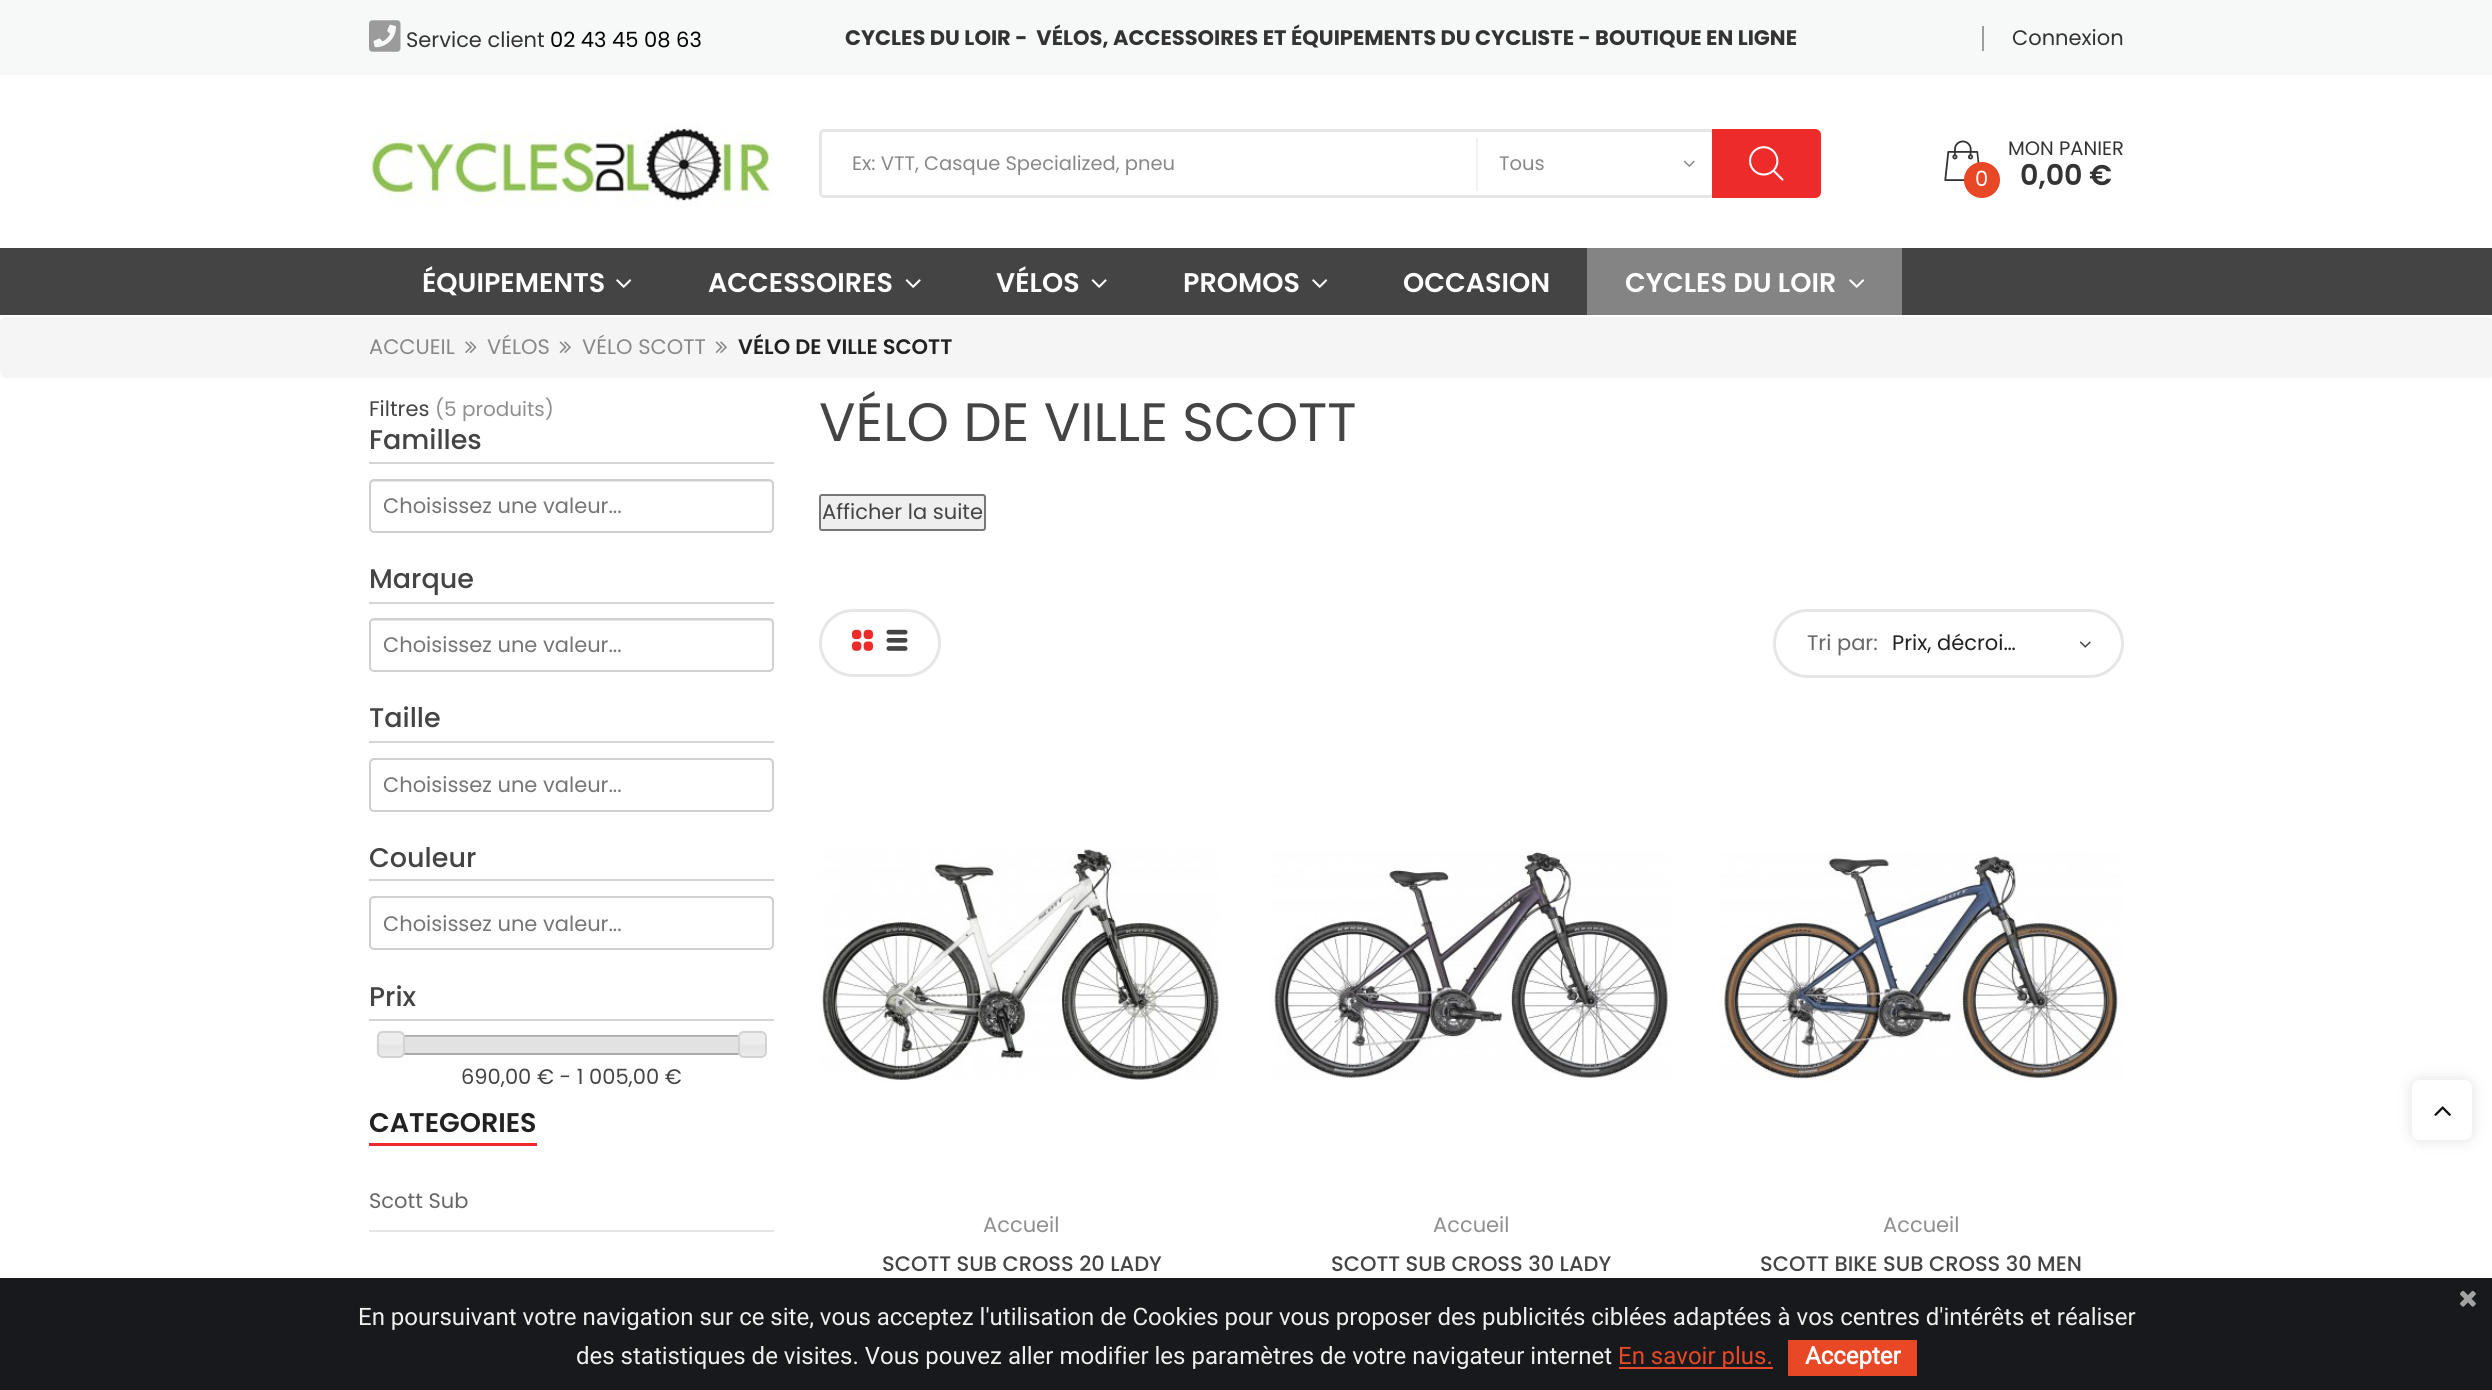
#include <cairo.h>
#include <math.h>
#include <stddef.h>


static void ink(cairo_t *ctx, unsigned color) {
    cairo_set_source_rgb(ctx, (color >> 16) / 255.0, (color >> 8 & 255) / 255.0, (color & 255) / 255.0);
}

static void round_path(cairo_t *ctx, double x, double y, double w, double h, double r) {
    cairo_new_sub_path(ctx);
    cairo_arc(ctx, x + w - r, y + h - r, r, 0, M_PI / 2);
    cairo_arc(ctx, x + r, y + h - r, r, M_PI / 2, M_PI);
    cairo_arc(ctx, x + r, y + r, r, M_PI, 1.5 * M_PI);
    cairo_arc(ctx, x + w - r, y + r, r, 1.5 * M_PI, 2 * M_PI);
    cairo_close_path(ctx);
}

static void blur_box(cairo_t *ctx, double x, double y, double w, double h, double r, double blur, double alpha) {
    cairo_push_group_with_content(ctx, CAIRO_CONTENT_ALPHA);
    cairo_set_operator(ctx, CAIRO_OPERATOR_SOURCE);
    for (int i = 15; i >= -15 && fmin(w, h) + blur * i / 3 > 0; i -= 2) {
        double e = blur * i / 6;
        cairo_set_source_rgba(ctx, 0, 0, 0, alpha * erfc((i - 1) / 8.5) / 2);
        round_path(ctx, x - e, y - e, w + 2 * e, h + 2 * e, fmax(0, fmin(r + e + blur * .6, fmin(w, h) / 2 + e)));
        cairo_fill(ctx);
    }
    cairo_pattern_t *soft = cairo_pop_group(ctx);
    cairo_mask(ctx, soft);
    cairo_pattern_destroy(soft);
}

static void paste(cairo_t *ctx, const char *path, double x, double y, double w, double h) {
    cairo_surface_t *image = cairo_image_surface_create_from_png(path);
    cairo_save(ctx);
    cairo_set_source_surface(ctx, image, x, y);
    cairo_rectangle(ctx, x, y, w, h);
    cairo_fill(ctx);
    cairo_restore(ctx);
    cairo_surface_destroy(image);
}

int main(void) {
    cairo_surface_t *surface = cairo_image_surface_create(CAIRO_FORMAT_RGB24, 2492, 1390);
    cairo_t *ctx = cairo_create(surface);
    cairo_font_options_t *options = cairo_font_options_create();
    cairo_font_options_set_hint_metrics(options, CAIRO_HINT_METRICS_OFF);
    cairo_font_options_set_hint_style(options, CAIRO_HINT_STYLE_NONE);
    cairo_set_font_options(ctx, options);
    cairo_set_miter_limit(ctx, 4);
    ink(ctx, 0xFFFFFF);
    cairo_paint(ctx);
    ink(ctx, 0xF7F8F8);
    cairo_rectangle(ctx, 0, 0, 2492, 75);
    cairo_fill(ctx);
    paste(ctx, "media/1.png", 369, 20, 32, 32);
    cairo_select_font_face(ctx, "Poppins", CAIRO_FONT_SLANT_NORMAL, CAIRO_FONT_WEIGHT_NORMAL);
    cairo_set_font_size(ctx, 21);
    ink(ctx, 0x333333);
    cairo_move_to(ctx, 406, 47);
    cairo_show_text(ctx, "Service client");
    ink(ctx, 0x000000);
    cairo_move_to(ctx, 550, 47);
    cairo_show_text(ctx, "02 43 45 08 63");
    cairo_select_font_face(ctx, "Poppins", CAIRO_FONT_SLANT_NORMAL, CAIRO_FONT_WEIGHT_BOLD);
    ink(ctx, 0x333333);
    cairo_move_to(ctx, 845, 45);
    cairo_show_text(ctx, "CYCLES DU LOIR -  VÉLOS, ACCESSOIRES ET ÉQUIPEMENTS DU CYCLISTE - BOUTIQUE EN LIGNE");
    ink(ctx, 0x9E9E9E);
    cairo_rectangle(ctx, 1982, 26, 2, 25);
    cairo_fill(ctx);
    cairo_select_font_face(ctx, "Poppins", CAIRO_FONT_SLANT_NORMAL, CAIRO_FONT_WEIGHT_NORMAL);
    ink(ctx, 0x333333);
    cairo_move_to(ctx, 2012, 45);
    cairo_show_text(ctx, "Connexion");
    paste(ctx, "media/2.png", 369, 124, 404, 83);
    paste(ctx, "media/3.png", 1683, 160, 12, 7);
    round_path(ctx, 820.5, 130.5, 893, 66, 3.5);
    ink(ctx, 0xE6E6E6);
    cairo_set_line_width(ctx, 3);
    cairo_stroke(ctx);
    ink(ctx, 0xFFFFFF);
    cairo_rectangle(ctx, 822, 132, 2, 63);
    cairo_fill(ctx);
    cairo_set_font_size(ctx, 19.5);
    ink(ctx, 0x888888);
    cairo_move_to(ctx, 852, 170);
    cairo_show_text(ctx, "Ex: VTT, Casque Specialized, pneu");
    ink(ctx, 0xF2F2F2);
    cairo_rectangle(ctx, 1476, 138, 2, 53);
    cairo_fill(ctx);
    ink(ctx, 0x888888);
    cairo_move_to(ctx, 1499, 170);
    cairo_show_text(ctx, "Tous");
    ink(ctx, 0xED2B2B);
    cairo_new_path(ctx);
    cairo_move_to(ctx, 1712, 129);
    cairo_line_to(ctx, 1815, 129);
    cairo_curve_to(ctx, 1818.5, 129, 1821, 131.5, 1821, 135);
    cairo_line_to(ctx, 1821, 192);
    cairo_curve_to(ctx, 1821, 195.5, 1818.5, 198, 1815, 198);
    cairo_line_to(ctx, 1712, 198);
    cairo_close_path(ctx);
    cairo_fill(ctx);
    paste(ctx, "media/4.png", 1749, 146, 35, 35);
    paste(ctx, "media/5.png", 1944, 140, 36, 41);
    ink(ctx, 0xE84826);
    cairo_arc(ctx, 1982, 180, 18, 0, 2 * M_PI);
    cairo_fill(ctx);
    cairo_set_font_size(ctx, 21);
    ink(ctx, 0xFFFFFF);
    cairo_move_to(ctx, 1975, 186);
    cairo_show_text(ctx, "0");
    cairo_set_font_size(ctx, 19.5);
    ink(ctx, 0x333333);
    cairo_move_to(ctx, 2008, 155);
    cairo_show_text(ctx, "MON PANIER");
    cairo_select_font_face(ctx, "Poppins SemiBold", CAIRO_FONT_SLANT_NORMAL, CAIRO_FONT_WEIGHT_NORMAL);
    cairo_set_font_size(ctx, 28.5);
    cairo_move_to(ctx, 2020, 185);
    cairo_show_text(ctx, "0,00 €");
    ink(ctx, 0x444444);
    cairo_rectangle(ctx, 0, 248, 2492, 67);
    cairo_fill(ctx);
    cairo_set_font_size(ctx, 27);
    ink(ctx, 0xFFFFFF);
    cairo_move_to(ctx, 422, 292);
    cairo_show_text(ctx, "ÉQUIPEMENTS");
    paste(ctx, "media/6.png", 616, 279, 16, 9);
    cairo_move_to(ctx, 708, 292);
    cairo_show_text(ctx, "ACCESSOIRES");
    paste(ctx, "media/7.png", 905, 279, 16, 9);
    cairo_move_to(ctx, 996, 292);
    cairo_show_text(ctx, "VÉLOS");
    paste(ctx, "media/7.png", 1091, 279, 16, 9);
    cairo_move_to(ctx, 1183, 292);
    cairo_show_text(ctx, "PROMOS");
    paste(ctx, "media/6.png", 1312, 279, 16, 9);
    cairo_move_to(ctx, 1403, 292);
    cairo_show_text(ctx, "OCCASION");
    ink(ctx, 0x848484);
    cairo_rectangle(ctx, 1587, 248, 315, 67);
    cairo_fill(ctx);
    ink(ctx, 0xFFFFFF);
    cairo_move_to(ctx, 1625, 292);
    cairo_show_text(ctx, "CYCLES DU LOIR");
    paste(ctx, "media/8.png", 1849, 279, 16, 9);
    ink(ctx, 0xF5F5F5);
    round_path(ctx, 0, 317, 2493, 61, 6);
    cairo_fill(ctx);
    cairo_select_font_face(ctx, "Poppins", CAIRO_FONT_SLANT_NORMAL, CAIRO_FONT_WEIGHT_NORMAL);
    cairo_set_font_size(ctx, 21);
    ink(ctx, 0x888888);
    cairo_move_to(ctx, 369, 354);
    cairo_show_text(ctx, "ACCUEIL");
    paste(ctx, "media/9.png", 465, 341, 12, 12);
    cairo_move_to(ctx, 487, 354);
    cairo_show_text(ctx, "VÉLOS");
    paste(ctx, "media/10.png", 559, 341, 12, 12);
    cairo_move_to(ctx, 582, 354);
    cairo_show_text(ctx, "VÉLO SCOTT");
    paste(ctx, "media/10.png", 715, 341, 12, 12);
    cairo_select_font_face(ctx, "Poppins SemiBold", CAIRO_FONT_SLANT_NORMAL, CAIRO_FONT_WEIGHT_NORMAL);
    ink(ctx, 0x222222);
    cairo_move_to(ctx, 738, 354);
    cairo_show_text(ctx, "VÉLO DE VILLE SCOTT");
    cairo_select_font_face(ctx, "Poppins", CAIRO_FONT_SLANT_NORMAL, CAIRO_FONT_WEIGHT_NORMAL);
    ink(ctx, 0x444444);
    cairo_move_to(ctx, 369, 416);
    cairo_show_text(ctx, "Filtres");
    cairo_set_font_size(ctx, 20);
    ink(ctx, 0x8F8F8F);
    cairo_move_to(ctx, 435, 416);
    cairo_show_text(ctx, "(5 produits)");
    ink(ctx, 0xD6D4D4);
    cairo_rectangle(ctx, 369, 462, 405, 2);
    cairo_fill(ctx);
    cairo_select_font_face(ctx, "Poppins Medium", CAIRO_FONT_SLANT_NORMAL, CAIRO_FONT_WEIGHT_NORMAL);
    cairo_set_font_size(ctx, 27);
    ink(ctx, 0x444444);
    cairo_move_to(ctx, 369, 449);
    cairo_show_text(ctx, "Familles");
    ink(ctx, 0xE6E6E6);
    cairo_new_path(ctx);
    cairo_move_to(ctx, 374, 482);
    cairo_line_to(ctx, 770, 482);
    cairo_curve_to(ctx, 771, 482, 772, 483, 772, 484);
    cairo_line_to(ctx, 772, 530);
    cairo_curve_to(ctx, 773, 530, 773, 529, 773, 528);
    cairo_line_to(ctx, 773, 483);
    cairo_curve_to(ctx, 773, 481, 772, 480, 770, 480);
    cairo_line_to(ctx, 374, 480);
    cairo_curve_to(ctx, 372, 480, 371, 481, 371, 483);
    cairo_close_path(ctx);
    cairo_fill(ctx);
    round_path(ctx, 370, 480, 403, 52, 4);
    ink(ctx, 0xD0D0D0);
    cairo_set_line_width(ctx, 2);
    cairo_stroke(ctx);
    cairo_select_font_face(ctx, "Poppins", CAIRO_FONT_SLANT_NORMAL, CAIRO_FONT_WEIGHT_NORMAL);
    cairo_set_font_size(ctx, 21);
    ink(ctx, 0x757575);
    cairo_move_to(ctx, 383, 513);
    cairo_show_text(ctx, "Choisissez une valeur...");
    ink(ctx, 0xD6D4D4);
    cairo_rectangle(ctx, 369, 602, 405, 2);
    cairo_fill(ctx);
    cairo_select_font_face(ctx, "Poppins Medium", CAIRO_FONT_SLANT_NORMAL, CAIRO_FONT_WEIGHT_NORMAL);
    cairo_set_font_size(ctx, 27);
    ink(ctx, 0x444444);
    cairo_move_to(ctx, 369, 588);
    cairo_show_text(ctx, "Marque");
    ink(ctx, 0xE6E6E6);
    cairo_new_path(ctx);
    cairo_move_to(ctx, 374, 621);
    cairo_line_to(ctx, 770, 621);
    cairo_curve_to(ctx, 771, 621, 772, 622, 772, 624);
    cairo_line_to(ctx, 772, 670);
    cairo_curve_to(ctx, 773, 670, 773, 669, 773, 668);
    cairo_line_to(ctx, 773, 623);
    cairo_curve_to(ctx, 773, 621, 772, 620, 770, 620);
    cairo_line_to(ctx, 374, 620);
    cairo_curve_to(ctx, 373, 620, 372, 621, 371, 622);
    cairo_close_path(ctx);
    cairo_fill(ctx);
    round_path(ctx, 370, 619, 403, 52, 4);
    ink(ctx, 0xD0D0D0);
    cairo_stroke(ctx);
    cairo_select_font_face(ctx, "Poppins", CAIRO_FONT_SLANT_NORMAL, CAIRO_FONT_WEIGHT_NORMAL);
    cairo_set_font_size(ctx, 21);
    ink(ctx, 0x757575);
    cairo_move_to(ctx, 383, 652);
    cairo_show_text(ctx, "Choisissez une valeur...");
    ink(ctx, 0xD6D4D4);
    cairo_rectangle(ctx, 369, 741, 405, 2);
    cairo_fill(ctx);
    cairo_select_font_face(ctx, "Poppins Medium", CAIRO_FONT_SLANT_NORMAL, CAIRO_FONT_WEIGHT_NORMAL);
    cairo_set_font_size(ctx, 27);
    ink(ctx, 0x444444);
    cairo_move_to(ctx, 369, 727);
    cairo_show_text(ctx, "Taille");
    ink(ctx, 0xE6E6E6);
    cairo_new_path(ctx);
    cairo_move_to(ctx, 374, 760);
    cairo_line_to(ctx, 770, 760);
    cairo_curve_to(ctx, 773, 760, 772, 777, 772, 779);
    cairo_line_to(ctx, 772, 809);
    cairo_curve_to(ctx, 773, 809, 773, 808, 773, 807);
    cairo_line_to(ctx, 773, 762);
    cairo_curve_to(ctx, 773, 760, 772, 759, 770, 759);
    cairo_line_to(ctx, 374, 759);
    cairo_curve_to(ctx, 373, 759, 371, 760, 371, 761);
    cairo_close_path(ctx);
    cairo_fill(ctx);
    round_path(ctx, 370, 759, 403, 52, 4);
    ink(ctx, 0xD0D0D0);
    cairo_stroke(ctx);
    cairo_select_font_face(ctx, "Poppins", CAIRO_FONT_SLANT_NORMAL, CAIRO_FONT_WEIGHT_NORMAL);
    cairo_set_font_size(ctx, 21);
    ink(ctx, 0x757575);
    cairo_move_to(ctx, 383, 792);
    cairo_show_text(ctx, "Choisissez une valeur...");
    ink(ctx, 0xD6D4D4);
    cairo_rectangle(ctx, 369, 879, 405, 2);
    cairo_fill(ctx);
    cairo_select_font_face(ctx, "Poppins Medium", CAIRO_FONT_SLANT_NORMAL, CAIRO_FONT_WEIGHT_NORMAL);
    cairo_set_font_size(ctx, 27);
    ink(ctx, 0x444444);
    cairo_move_to(ctx, 369, 867);
    cairo_show_text(ctx, "Couleur");
    ink(ctx, 0xE6E6E6);
    cairo_new_path(ctx);
    cairo_move_to(ctx, 374, 898);
    cairo_line_to(ctx, 770, 898);
    cairo_curve_to(ctx, 773, 898, 772, 915, 772, 917);
    cairo_line_to(ctx, 772, 947);
    cairo_curve_to(ctx, 773, 947, 773, 946, 773, 945);
    cairo_line_to(ctx, 773, 900);
    cairo_curve_to(ctx, 773, 898, 772, 897, 770, 897);
    cairo_line_to(ctx, 374, 897);
    cairo_curve_to(ctx, 373, 897, 371, 898, 371, 899);
    cairo_close_path(ctx);
    cairo_fill(ctx);
    round_path(ctx, 370, 897, 403, 52, 4);
    ink(ctx, 0xD0D0D0);
    cairo_stroke(ctx);
    cairo_select_font_face(ctx, "Poppins", CAIRO_FONT_SLANT_NORMAL, CAIRO_FONT_WEIGHT_NORMAL);
    cairo_set_font_size(ctx, 21);
    ink(ctx, 0x757575);
    cairo_move_to(ctx, 383, 931);
    cairo_show_text(ctx, "Choisissez une valeur...");
    ink(ctx, 0xD6D4D4);
    cairo_rectangle(ctx, 369, 1019, 405, 2);
    cairo_fill(ctx);
    cairo_select_font_face(ctx, "Poppins Medium", CAIRO_FONT_SLANT_NORMAL, CAIRO_FONT_WEIGHT_NORMAL);
    cairo_set_font_size(ctx, 27);
    ink(ctx, 0x444444);
    cairo_move_to(ctx, 369, 1006);
    cairo_show_text(ctx, "Prix");
    cairo_rectangle(ctx, 391, 1036, 363, 18);
    ink(ctx, 0xAAAAAA);
    cairo_stroke(ctx);
    paste(ctx, "media/12.png", 404, 1036, 335, 17);
    paste(ctx, "media/11.png", 376, 1030, 29, 27);
    round_path(ctx, 378, 1032, 26, 25, 5);
    ink(ctx, 0xD3D3D3);
    cairo_stroke(ctx);
    paste(ctx, "media/13.png", 738, 1030, 28, 27);
    round_path(ctx, 739, 1032, 27, 25, 5);
    cairo_stroke(ctx);
    cairo_select_font_face(ctx, "Poppins", CAIRO_FONT_SLANT_NORMAL, CAIRO_FONT_WEIGHT_NORMAL);
    cairo_set_font_size(ctx, 21);
    ink(ctx, 0x444444);
    cairo_move_to(ctx, 461, 1084);
    cairo_show_text(ctx, "690,00 € - 1 005,00 €");
    ink(ctx, 0xED2B2B);
    cairo_rectangle(ctx, 369, 1143, 168, 3);
    cairo_fill(ctx);
    cairo_select_font_face(ctx, "Poppins SemiBold", CAIRO_FONT_SLANT_NORMAL, CAIRO_FONT_WEIGHT_NORMAL);
    cairo_set_font_size(ctx, 27);
    ink(ctx, 0x222222);
    cairo_move_to(ctx, 369, 1132);
    cairo_show_text(ctx, "CATEGORIES");
    ink(ctx, 0xE6E6E6);
    cairo_rectangle(ctx, 369, 1230, 405, 2);
    cairo_fill(ctx);
    cairo_select_font_face(ctx, "Poppins", CAIRO_FONT_SLANT_NORMAL, CAIRO_FONT_WEIGHT_NORMAL);
    cairo_set_font_size(ctx, 21);
    ink(ctx, 0x666666);
    cairo_move_to(ctx, 369, 1208);
    cairo_show_text(ctx, "Scott Sub");
    cairo_set_font_size(ctx, 54);
    ink(ctx, 0x444444);
    cairo_move_to(ctx, 819, 441);
    cairo_show_text(ctx, "VÉLO DE VILLE SCOTT");
    ink(ctx, 0xEFEFEF);
    round_path(ctx, 820, 495, 165, 35, 2);
    cairo_fill_preserve(ctx);
    ink(ctx, 0x767676);
    cairo_stroke(ctx);
    cairo_set_font_size(ctx, 21);
    ink(ctx, 0x444444);
    cairo_move_to(ctx, 822, 519);
    cairo_show_text(ctx, "Afficher la suite");
    round_path(ctx, 820.5, 610.5, 119, 65, 32.5);
    ink(ctx, 0xE6E6E6);
    cairo_set_line_width(ctx, 3);
    cairo_stroke(ctx);
    paste(ctx, "media/14.png", 852, 629, 21, 22);
    paste(ctx, "media/15.png", 886, 629, 22, 22);
    round_path(ctx, 1774.5, 610.5, 348, 66, 33);
    cairo_stroke(ctx);
    ink(ctx, 0x666666);
    cairo_move_to(ctx, 1807, 650);
    cairo_show_text(ctx, "Tri par:");
    ink(ctx, 0x222222);
    cairo_move_to(ctx, 1892, 650);
    cairo_show_text(ctx, "Prix, décroi…");
    paste(ctx, "media/16.png", 2079, 641, 12, 7);
    paste(ctx, "media/17.png", 819, 849, 401, 232);
    ink(ctx, 0x8F8F8F);
    cairo_move_to(ctx, 983, 1232);
    cairo_show_text(ctx, "Accueil");
    cairo_select_font_face(ctx, "Poppins Medium", CAIRO_FONT_SLANT_NORMAL, CAIRO_FONT_WEIGHT_NORMAL);
    ink(ctx, 0x444444);
    cairo_move_to(ctx, 882, 1271);
    cairo_show_text(ctx, "SCOTT SUB CROSS 20 LADY");
    paste(ctx, "media/18.png", 1270, 851, 400, 230);
    cairo_select_font_face(ctx, "Poppins", CAIRO_FONT_SLANT_NORMAL, CAIRO_FONT_WEIGHT_NORMAL);
    ink(ctx, 0x8F8F8F);
    cairo_move_to(ctx, 1433, 1232);
    cairo_show_text(ctx, "Accueil");
    cairo_select_font_face(ctx, "Poppins Medium", CAIRO_FONT_SLANT_NORMAL, CAIRO_FONT_WEIGHT_NORMAL);
    ink(ctx, 0x444444);
    cairo_move_to(ctx, 1331, 1271);
    cairo_show_text(ctx, "SCOTT SUB CROSS 30 LADY");
    paste(ctx, "media/19.png", 1719, 852, 405, 229);
    cairo_select_font_face(ctx, "Poppins", CAIRO_FONT_SLANT_NORMAL, CAIRO_FONT_WEIGHT_NORMAL);
    ink(ctx, 0x8F8F8F);
    cairo_move_to(ctx, 1883, 1232);
    cairo_show_text(ctx, "Accueil");
    cairo_select_font_face(ctx, "Poppins Medium", CAIRO_FONT_SLANT_NORMAL, CAIRO_FONT_WEIGHT_NORMAL);
    ink(ctx, 0x444444);
    cairo_move_to(ctx, 1760, 1271);
    cairo_show_text(ctx, "SCOTT BIKE SUB CROSS 30 MEN");
    ink(ctx, 0x000000);
    blur_box(ctx, 2412, 1080, 60, 60, 8, 8, 0.12);
    ink(ctx, 0xFFFFFF);
    round_path(ctx, 2412, 1080, 60, 60, 8);
    cairo_fill(ctx);
    paste(ctx, "media/20.png", 2434, 1106, 17, 10);
    ink(ctx, 0x17191C);
    cairo_rectangle(ctx, 0, 1278, 2492, 112);
    cairo_fill(ctx);
    paste(ctx, "media/21.png", 2460, 1290, 16, 17);
    cairo_select_font_face(ctx, "Roboto", CAIRO_FONT_SLANT_NORMAL, CAIRO_FONT_WEIGHT_NORMAL);
    cairo_set_font_size(ctx, 24);
    ink(ctx, 0xEFEFEF);
    cairo_move_to(ctx, 358, 1325);
    cairo_show_text(ctx, "En poursuivant votre navigation sur ce site, vous acceptez l'utilisation de Cookies pour vous proposer des publicités ciblées adaptées à vos centres d'intérêts et réaliser");
    cairo_move_to(ctx, 576, 1364);
    cairo_show_text(ctx, "des statistiques de visites. Vous pouvez aller modifier les paramètres de votre navigateur internet");
    ink(ctx, 0xE84826);
    cairo_rectangle(ctx, 1619, 1367, 154, 2);
    cairo_fill(ctx);
    cairo_move_to(ctx, 1618, 1364);
    cairo_show_text(ctx, "En savoir plus.");
    cairo_rectangle(ctx, 1788, 1340, 129, 36);
    cairo_fill(ctx);
    cairo_select_font_face(ctx, "Roboto", CAIRO_FONT_SLANT_NORMAL, CAIRO_FONT_WEIGHT_BOLD);
    ink(ctx, 0xFFFFFF);
    cairo_move_to(ctx, 1805, 1364);
    cairo_show_text(ctx, "Accepter");
    cairo_surface_write_to_png(surface, "image.png");
    cairo_font_options_destroy(options);
    cairo_destroy(ctx);
    cairo_surface_destroy(surface);
    return 0;
}
